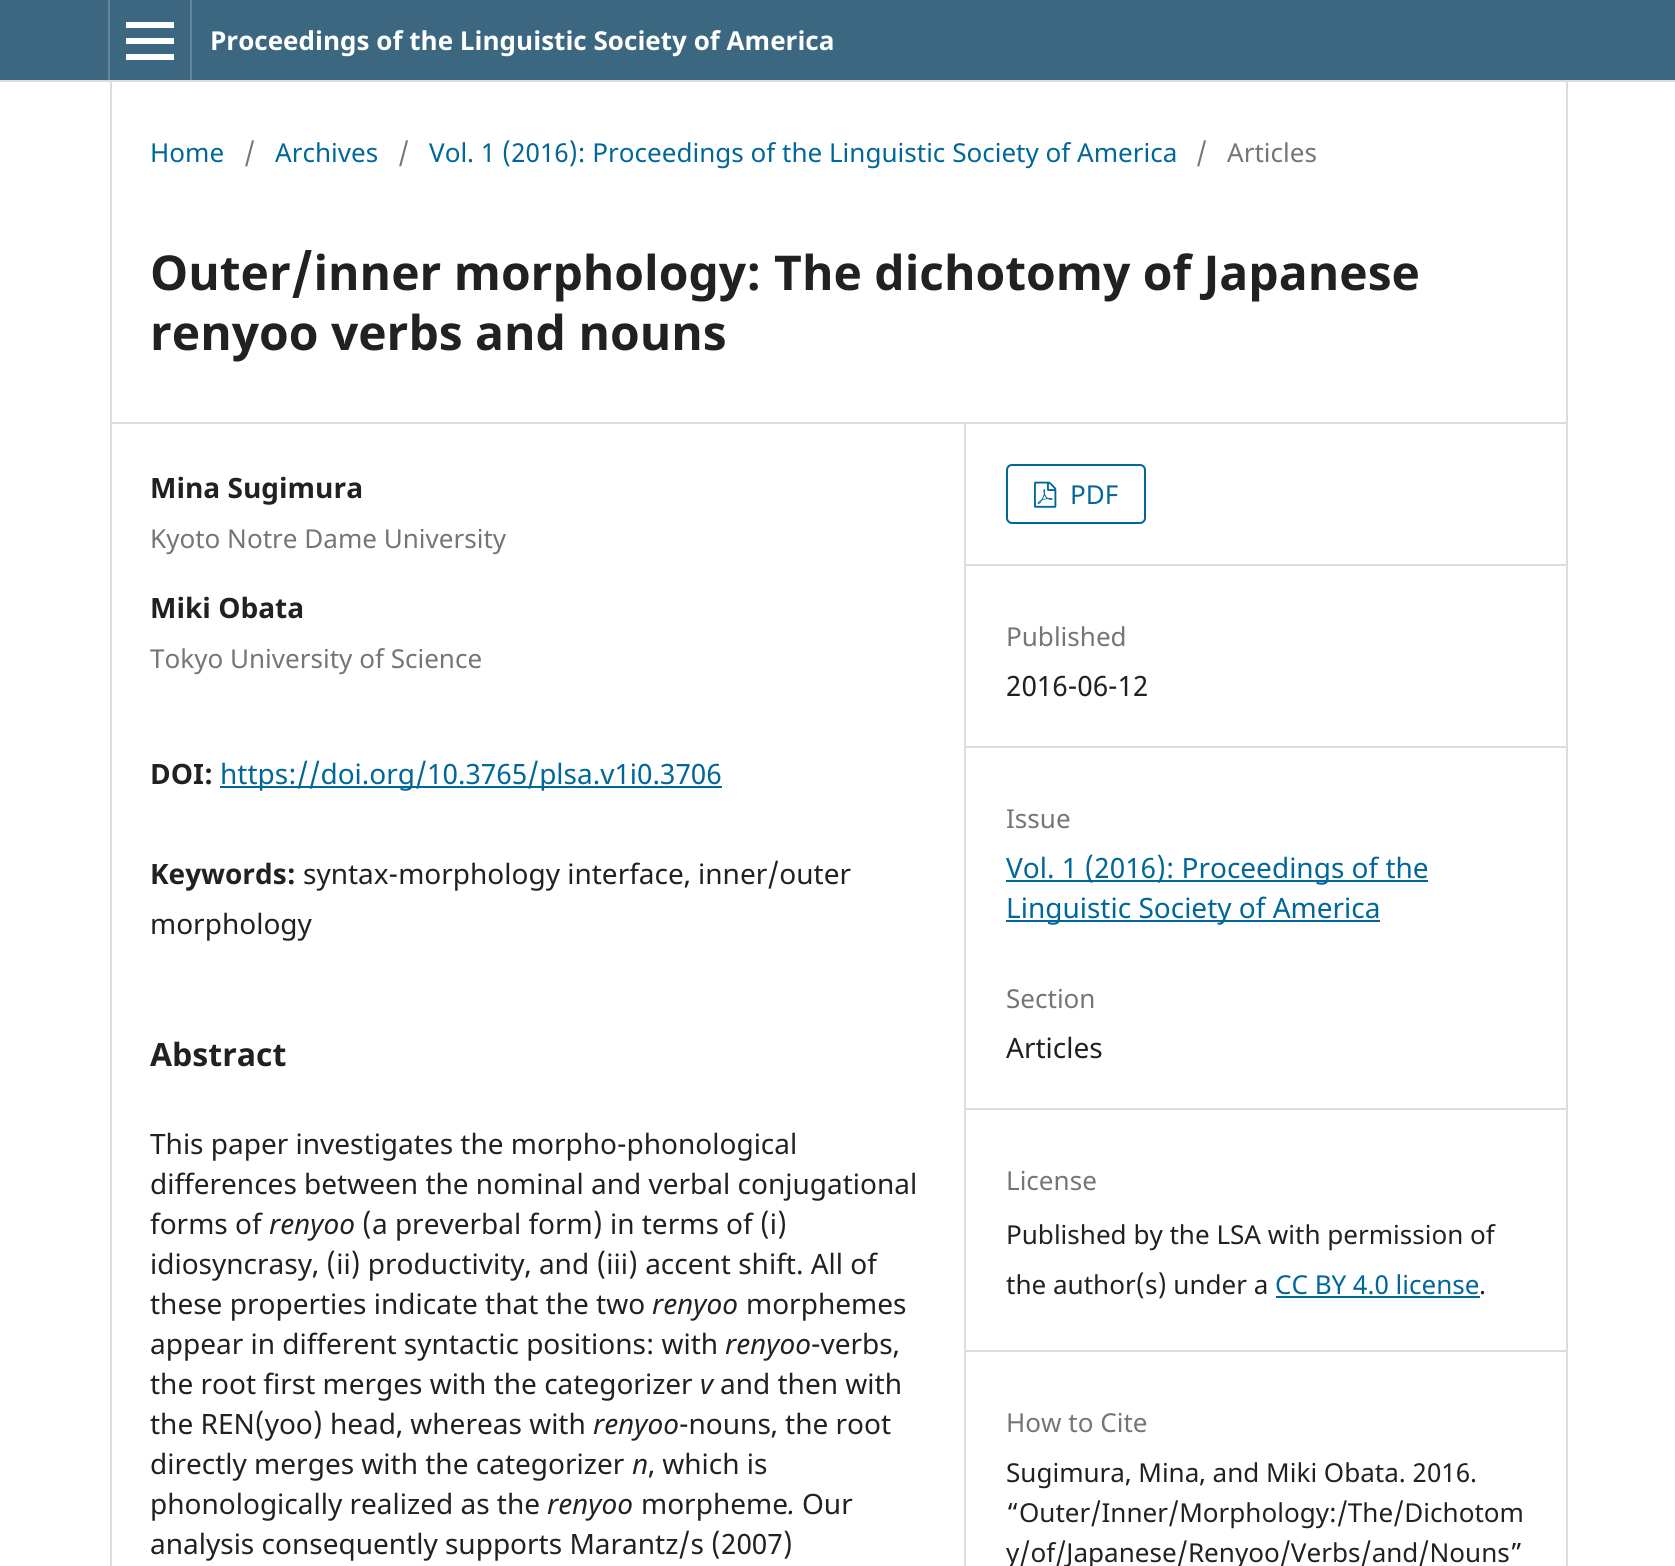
#include <cairo.h>
#include <math.h>
#include <stddef.h>

typedef struct { double x, y; const char *s; } line_t;
typedef struct { double x, y, w, h; unsigned color; } box_t;

static void ink(cairo_t *ctx, unsigned color) {
    cairo_set_source_rgb(ctx, (color >> 16) / 255.0, (color >> 8 & 255) / 255.0, (color & 255) / 255.0);
}

static void round_path(cairo_t *ctx, double x, double y, double w, double h, double r) {
    cairo_new_sub_path(ctx);
    cairo_arc(ctx, x + w - r, y + h - r, r, 0, M_PI / 2);
    cairo_arc(ctx, x + r, y + h - r, r, M_PI / 2, M_PI);
    cairo_arc(ctx, x + r, y + r, r, M_PI, 1.5 * M_PI);
    cairo_arc(ctx, x + w - r, y + r, r, 1.5 * M_PI, 2 * M_PI);
    cairo_close_path(ctx);
}

static void paste(cairo_t *ctx, const char *path, double x, double y, double w, double h) {
    cairo_surface_t *image = cairo_image_surface_create_from_png(path);
    cairo_save(ctx);
    cairo_set_source_surface(ctx, image, x, y);
    cairo_rectangle(ctx, x, y, w, h);
    cairo_fill(ctx);
    cairo_restore(ctx);
    cairo_surface_destroy(image);
}

int main(void) {
    cairo_surface_t *surface = cairo_image_surface_create(CAIRO_FORMAT_RGB24, 1675, 1566);
    cairo_t *ctx = cairo_create(surface);
    cairo_font_options_t *options = cairo_font_options_create();
    cairo_font_options_set_hint_metrics(options, CAIRO_HINT_METRICS_OFF);
    cairo_font_options_set_hint_style(options, CAIRO_HINT_STYLE_NONE);
    cairo_set_font_options(ctx, options);
    cairo_set_miter_limit(ctx, 4);
    ink(ctx, 0xFFFFFF);
    cairo_paint(ctx);
    {
        static const box_t items[] = {
            {0, 0, 1675, 80, 0x3C6781},
            {0, 80, 1675, 2, 0xDDDDDD},
            {108, 0, 2, 80, 0x63859A},
            {190, 0, 2, 80, 0x63859A},
            {126, 54, 48, 6, 0xFFFFFF},
            {126, 22, 48, 6, 0xFFFFFF},
            {126, 38, 48, 6, 0xFFFFFF},
        };
        for (size_t i = 0; i < sizeof items / sizeof *items; i++) {
            ink(ctx, items[i].color);
            cairo_rectangle(ctx, items[i].x, items[i].y, items[i].w, items[i].h);
            cairo_fill(ctx);
        }
    }
    cairo_select_font_face(ctx, "Noto Sans", CAIRO_FONT_SLANT_NORMAL, CAIRO_FONT_WEIGHT_BOLD);
    cairo_set_font_size(ctx, 26.05);
    cairo_move_to(ctx, 210, 50);
    cairo_show_text(ctx, "Proceedings of the Linguistic Society of America");
    ink(ctx, 0xDDDDDD);
    cairo_rectangle(ctx, 110, 422, 1456, 2);
    cairo_fill(ctx);
    cairo_rectangle(ctx, 110, 82, 2, 1484);
    cairo_fill(ctx);
    cairo_select_font_face(ctx, "Noto Sans", CAIRO_FONT_SLANT_NORMAL, CAIRO_FONT_WEIGHT_NORMAL);
    ink(ctx, 0x006798);
    cairo_move_to(ctx, 150, 162);
    cairo_show_text(ctx, "Home");
    ink(ctx, 0x757575);
    cairo_move_to(ctx, 244, 162);
    cairo_show_text(ctx, "/");
    ink(ctx, 0x006798);
    cairo_move_to(ctx, 275, 162);
    cairo_show_text(ctx, "Archives");
    ink(ctx, 0x757575);
    cairo_move_to(ctx, 398, 162);
    cairo_show_text(ctx, "/");
    ink(ctx, 0x006798);
    cairo_move_to(ctx, 429, 162);
    cairo_show_text(ctx, "Vol. 1 (2016): Proceedings of the Linguistic Society of America");
    ink(ctx, 0x757575);
    cairo_move_to(ctx, 1196, 162);
    cairo_show_text(ctx, "/");
    cairo_move_to(ctx, 1227, 162);
    cairo_show_text(ctx, "Articles");
    cairo_select_font_face(ctx, "Noto Sans", CAIRO_FONT_SLANT_NORMAL, CAIRO_FONT_WEIGHT_BOLD);
    cairo_set_font_size(ctx, 48);
    ink(ctx, 0x212121);
    cairo_move_to(ctx, 150, 290);
    cairo_show_text(ctx, "Outer/inner morphology: The dichotomy of Japanese");
    cairo_move_to(ctx, 150, 350);
    cairo_show_text(ctx, "renyoo verbs and nouns");
    ink(ctx, 0xDDDDDD);
    cairo_rectangle(ctx, 964, 424, 2, 1142);
    cairo_fill(ctx);
    cairo_set_font_size(ctx, 28);
    ink(ctx, 0x212121);
    cairo_move_to(ctx, 150, 498);
    cairo_show_text(ctx, "Mina Sugimura");
    cairo_select_font_face(ctx, "Noto Sans", CAIRO_FONT_SLANT_NORMAL, CAIRO_FONT_WEIGHT_NORMAL);
    cairo_set_font_size(ctx, 26.05);
    ink(ctx, 0x757575);
    cairo_move_to(ctx, 150, 548);
    cairo_show_text(ctx, "Kyoto Notre Dame University");
    cairo_select_font_face(ctx, "Noto Sans", CAIRO_FONT_SLANT_NORMAL, CAIRO_FONT_WEIGHT_BOLD);
    cairo_set_font_size(ctx, 28);
    ink(ctx, 0x212121);
    cairo_move_to(ctx, 150, 618);
    cairo_show_text(ctx, "Miki Obata");
    cairo_select_font_face(ctx, "Noto Sans", CAIRO_FONT_SLANT_NORMAL, CAIRO_FONT_WEIGHT_NORMAL);
    cairo_set_font_size(ctx, 26.05);
    ink(ctx, 0x757575);
    cairo_move_to(ctx, 150, 668);
    cairo_show_text(ctx, "Tokyo University of Science");
    cairo_select_font_face(ctx, "Noto Sans", CAIRO_FONT_SLANT_NORMAL, CAIRO_FONT_WEIGHT_BOLD);
    cairo_set_font_size(ctx, 28);
    ink(ctx, 0x212121);
    cairo_move_to(ctx, 150, 784);
    cairo_show_text(ctx, "DOI:");
    ink(ctx, 0x006798);
    cairo_rectangle(ctx, 220, 786, 502, 2);
    cairo_fill(ctx);
    cairo_select_font_face(ctx, "Noto Sans", CAIRO_FONT_SLANT_NORMAL, CAIRO_FONT_WEIGHT_NORMAL);
    cairo_move_to(ctx, 220, 784);
    cairo_show_text(ctx, "https://doi.org/10.3765/plsa.v1i0.3706");
    cairo_select_font_face(ctx, "Noto Sans", CAIRO_FONT_SLANT_NORMAL, CAIRO_FONT_WEIGHT_BOLD);
    ink(ctx, 0x212121);
    cairo_move_to(ctx, 150, 884);
    cairo_show_text(ctx, "Keywords:");
    cairo_select_font_face(ctx, "Noto Sans", CAIRO_FONT_SLANT_NORMAL, CAIRO_FONT_WEIGHT_NORMAL);
    cairo_move_to(ctx, 303, 884);
    cairo_show_text(ctx, "syntax-morphology interface, inner/outer");
    cairo_move_to(ctx, 150, 934);
    cairo_show_text(ctx, "morphology");
    cairo_select_font_face(ctx, "Noto Sans", CAIRO_FONT_SLANT_NORMAL, CAIRO_FONT_WEIGHT_BOLD);
    cairo_set_font_size(ctx, 32);
    cairo_move_to(ctx, 150, 1066);
    cairo_show_text(ctx, "Abstract");
    cairo_select_font_face(ctx, "Noto Sans", CAIRO_FONT_SLANT_NORMAL, CAIRO_FONT_WEIGHT_NORMAL);
    cairo_set_font_size(ctx, 28);
    {
        static const line_t items[] = {
            {150, 1154, "This paper investigates the morpho-phonological"},
            {150, 1194, "differences between the nominal and verbal conjugational"},
            {150, 1234, "forms of"},
        };
        for (size_t i = 0; i < sizeof items / sizeof *items; i++) {
            cairo_move_to(ctx, items[i].x, items[i].y);
            cairo_show_text(ctx, items[i].s);
        }
    }
    cairo_select_font_face(ctx, "Noto Sans", CAIRO_FONT_SLANT_ITALIC, CAIRO_FONT_WEIGHT_NORMAL);
    cairo_move_to(ctx, 269, 1234);
    cairo_show_text(ctx, "renyoo");
    cairo_select_font_face(ctx, "Noto Sans", CAIRO_FONT_SLANT_NORMAL, CAIRO_FONT_WEIGHT_NORMAL);
    {
        static const line_t items[] = {
            {362, 1234, "(a preverbal form) in terms of (i)"},
            {150, 1274, "idiosyncrasy, (ii) productivity, and (iii) accent shift. All of"},
            {150, 1314, "these properties indicate that the two"},
        };
        for (size_t i = 0; i < sizeof items / sizeof *items; i++) {
            cairo_move_to(ctx, items[i].x, items[i].y);
            cairo_show_text(ctx, items[i].s);
        }
    }
    cairo_select_font_face(ctx, "Noto Sans", CAIRO_FONT_SLANT_ITALIC, CAIRO_FONT_WEIGHT_NORMAL);
    cairo_move_to(ctx, 652, 1314);
    cairo_show_text(ctx, "renyoo");
    cairo_select_font_face(ctx, "Noto Sans", CAIRO_FONT_SLANT_NORMAL, CAIRO_FONT_WEIGHT_NORMAL);
    cairo_move_to(ctx, 746, 1314);
    cairo_show_text(ctx, "morphemes");
    cairo_move_to(ctx, 150, 1354);
    cairo_show_text(ctx, "appear in different syntactic positions: with");
    cairo_select_font_face(ctx, "Noto Sans", CAIRO_FONT_SLANT_ITALIC, CAIRO_FONT_WEIGHT_NORMAL);
    cairo_move_to(ctx, 725, 1354);
    cairo_show_text(ctx, "renyoo");
    cairo_select_font_face(ctx, "Noto Sans", CAIRO_FONT_SLANT_NORMAL, CAIRO_FONT_WEIGHT_NORMAL);
    cairo_move_to(ctx, 811, 1354);
    cairo_show_text(ctx, "-verbs,");
    cairo_move_to(ctx, 150, 1394);
    cairo_show_text(ctx, "the root first merges with the categorizer");
    cairo_select_font_face(ctx, "Noto Sans", CAIRO_FONT_SLANT_ITALIC, CAIRO_FONT_WEIGHT_NORMAL);
    cairo_move_to(ctx, 700, 1394);
    cairo_show_text(ctx, "v");
    cairo_select_font_face(ctx, "Noto Sans", CAIRO_FONT_SLANT_NORMAL, CAIRO_FONT_WEIGHT_NORMAL);
    cairo_move_to(ctx, 720, 1394);
    cairo_show_text(ctx, "and then with");
    cairo_move_to(ctx, 150, 1434);
    cairo_show_text(ctx, "the REN(yoo) head, whereas with");
    cairo_select_font_face(ctx, "Noto Sans", CAIRO_FONT_SLANT_ITALIC, CAIRO_FONT_WEIGHT_NORMAL);
    cairo_move_to(ctx, 593, 1434);
    cairo_show_text(ctx, "renyoo");
    cairo_select_font_face(ctx, "Noto Sans", CAIRO_FONT_SLANT_NORMAL, CAIRO_FONT_WEIGHT_NORMAL);
    cairo_move_to(ctx, 679, 1434);
    cairo_show_text(ctx, "-nouns, the root");
    cairo_move_to(ctx, 150, 1474);
    cairo_show_text(ctx, "directly merges with the categorizer");
    cairo_select_font_face(ctx, "Noto Sans", CAIRO_FONT_SLANT_ITALIC, CAIRO_FONT_WEIGHT_NORMAL);
    cairo_move_to(ctx, 632, 1474);
    cairo_show_text(ctx, "n");
    cairo_select_font_face(ctx, "Noto Sans", CAIRO_FONT_SLANT_NORMAL, CAIRO_FONT_WEIGHT_NORMAL);
    cairo_move_to(ctx, 648, 1474);
    cairo_show_text(ctx, ", which is");
    cairo_move_to(ctx, 150, 1514);
    cairo_show_text(ctx, "phonologically realized as the");
    cairo_select_font_face(ctx, "Noto Sans", CAIRO_FONT_SLANT_ITALIC, CAIRO_FONT_WEIGHT_NORMAL);
    cairo_move_to(ctx, 547, 1514);
    cairo_show_text(ctx, "renyoo");
    cairo_select_font_face(ctx, "Noto Sans", CAIRO_FONT_SLANT_NORMAL, CAIRO_FONT_WEIGHT_NORMAL);
    cairo_move_to(ctx, 641, 1514);
    cairo_show_text(ctx, "morpheme");
    cairo_select_font_face(ctx, "Noto Sans", CAIRO_FONT_SLANT_ITALIC, CAIRO_FONT_WEIGHT_NORMAL);
    cairo_move_to(ctx, 788, 1514);
    cairo_show_text(ctx, ".");
    cairo_select_font_face(ctx, "Noto Sans", CAIRO_FONT_SLANT_NORMAL, CAIRO_FONT_WEIGHT_NORMAL);
    cairo_move_to(ctx, 802, 1514);
    cairo_show_text(ctx, "Our");
    cairo_move_to(ctx, 150, 1554);
    cairo_show_text(ctx, "analysis consequently supports Marantz/s (2007)");
    ink(ctx, 0xDDDDDD);
    cairo_rectangle(ctx, 966, 564, 600, 2);
    cairo_fill(ctx);
    round_path(ctx, 1007, 465, 138, 58, 5);
    ink(ctx, 0x006798);
    cairo_stroke(ctx);
    paste(ctx, "media/1.png", 1034, 481, 23, 27);
    cairo_set_font_size(ctx, 26.05);
    cairo_move_to(ctx, 1070, 504);
    cairo_show_text(ctx, "PDF");
    ink(ctx, 0xDDDDDD);
    cairo_rectangle(ctx, 966, 746, 600, 2);
    cairo_fill(ctx);
    ink(ctx, 0x757575);
    cairo_move_to(ctx, 1006, 646);
    cairo_show_text(ctx, "Published");
    cairo_set_font_size(ctx, 28);
    ink(ctx, 0x212121);
    cairo_move_to(ctx, 1006, 696);
    cairo_show_text(ctx, "2016-06-12");
    ink(ctx, 0xDDDDDD);
    cairo_rectangle(ctx, 966, 1108, 600, 2);
    cairo_fill(ctx);
    cairo_set_font_size(ctx, 26.05);
    ink(ctx, 0x757575);
    cairo_move_to(ctx, 1006, 828);
    cairo_show_text(ctx, "Issue");
    ink(ctx, 0x006798);
    cairo_rectangle(ctx, 1006, 880, 422, 2);
    cairo_fill(ctx);
    cairo_set_font_size(ctx, 28);
    cairo_move_to(ctx, 1006, 878);
    cairo_show_text(ctx, "Vol. 1 (2016): Proceedings of the");
    cairo_rectangle(ctx, 1006, 920, 374, 2);
    cairo_fill(ctx);
    cairo_move_to(ctx, 1006, 918);
    cairo_show_text(ctx, "Linguistic Society of America");
    cairo_set_font_size(ctx, 26.05);
    ink(ctx, 0x757575);
    cairo_move_to(ctx, 1006, 1008);
    cairo_show_text(ctx, "Section");
    cairo_set_font_size(ctx, 28);
    ink(ctx, 0x212121);
    cairo_move_to(ctx, 1006, 1058);
    cairo_show_text(ctx, "Articles");
    ink(ctx, 0xDDDDDD);
    cairo_rectangle(ctx, 966, 1350, 600, 2);
    cairo_fill(ctx);
    cairo_set_font_size(ctx, 26.05);
    ink(ctx, 0x757575);
    cairo_move_to(ctx, 1006, 1190);
    cairo_show_text(ctx, "License");
    ink(ctx, 0x212121);
    cairo_move_to(ctx, 1006, 1244);
    cairo_show_text(ctx, "Published by the LSA with permission of");
    cairo_move_to(ctx, 1006, 1294);
    cairo_show_text(ctx, "the author(s) under a");
    ink(ctx, 0x006798);
    cairo_move_to(ctx, 1275, 1294);
    cairo_show_text(ctx, "CC BY 4.0 license");
    cairo_rectangle(ctx, 1276, 1296, 204, 2);
    cairo_fill(ctx);
    ink(ctx, 0x212121);
    cairo_move_to(ctx, 1479, 1294);
    cairo_show_text(ctx, ".");
    ink(ctx, 0x757575);
    cairo_move_to(ctx, 1006, 1432);
    cairo_show_text(ctx, "How to Cite");
    ink(ctx, 0x212121);
    {
        static const line_t items[] = {
            {1006, 1482, "Sugimura, Mina, and Miki Obata. 2016."},
            {1006, 1522, "“Outer/Inner/Morphology:/The/Dichotom"},
            {1006, 1562, "y/of/Japanese/Renyoo/Verbs/and/Nouns”"},
        };
        for (size_t i = 0; i < sizeof items / sizeof *items; i++) {
            cairo_move_to(ctx, items[i].x, items[i].y);
            cairo_show_text(ctx, items[i].s);
        }
    }
    ink(ctx, 0xDDDDDD);
    cairo_rectangle(ctx, 1566, 82, 2, 1484);
    cairo_fill(ctx);
    cairo_surface_write_to_png(surface, "image.png");
    cairo_font_options_destroy(options);
    cairo_destroy(ctx);
    cairo_surface_destroy(surface);
    return 0;
}
